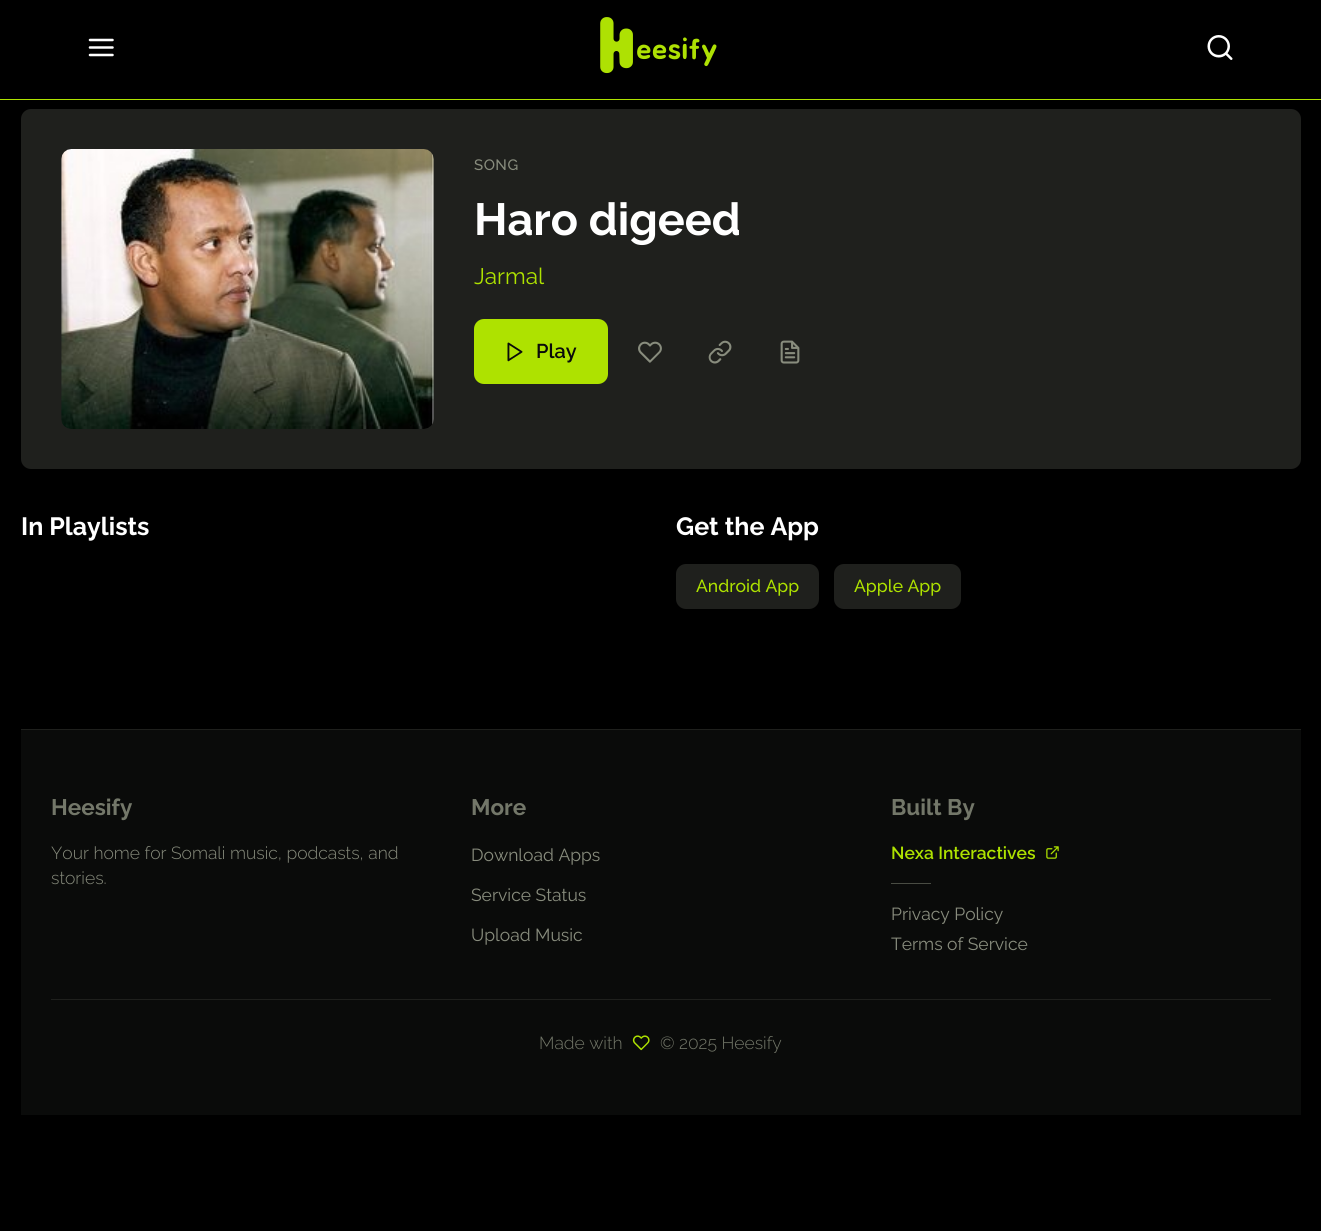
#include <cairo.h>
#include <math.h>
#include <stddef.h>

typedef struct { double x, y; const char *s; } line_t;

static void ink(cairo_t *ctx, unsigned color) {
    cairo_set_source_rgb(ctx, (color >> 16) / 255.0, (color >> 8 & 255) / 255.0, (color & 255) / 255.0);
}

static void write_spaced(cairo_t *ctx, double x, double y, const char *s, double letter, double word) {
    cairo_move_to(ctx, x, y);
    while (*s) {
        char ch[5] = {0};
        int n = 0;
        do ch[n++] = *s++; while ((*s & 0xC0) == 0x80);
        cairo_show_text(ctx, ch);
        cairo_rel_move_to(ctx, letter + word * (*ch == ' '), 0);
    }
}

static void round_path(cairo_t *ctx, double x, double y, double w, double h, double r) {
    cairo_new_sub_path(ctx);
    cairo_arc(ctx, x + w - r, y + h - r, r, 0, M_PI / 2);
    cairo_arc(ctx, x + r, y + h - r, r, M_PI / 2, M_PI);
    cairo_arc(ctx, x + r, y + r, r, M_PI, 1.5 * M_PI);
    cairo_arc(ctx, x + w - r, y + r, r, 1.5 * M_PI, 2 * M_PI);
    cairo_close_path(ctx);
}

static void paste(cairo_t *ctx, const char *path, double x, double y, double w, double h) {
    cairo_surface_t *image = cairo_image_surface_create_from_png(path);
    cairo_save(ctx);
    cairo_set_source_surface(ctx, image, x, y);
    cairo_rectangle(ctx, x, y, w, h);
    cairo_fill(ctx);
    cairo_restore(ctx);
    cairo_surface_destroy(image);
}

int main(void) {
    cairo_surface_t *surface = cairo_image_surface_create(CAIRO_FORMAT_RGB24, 1321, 1231);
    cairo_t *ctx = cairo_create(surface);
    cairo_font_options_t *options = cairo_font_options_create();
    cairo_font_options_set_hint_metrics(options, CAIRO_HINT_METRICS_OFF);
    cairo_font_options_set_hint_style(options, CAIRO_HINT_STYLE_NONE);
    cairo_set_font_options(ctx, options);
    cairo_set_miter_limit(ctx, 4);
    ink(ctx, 0x000000);
    cairo_paint(ctx);
    ink(ctx, 0xAEE200);
    cairo_rectangle(ctx, 0, 99, 1321, 1);
    cairo_fill(ctx);
    paste(ctx, "media/1.png", 88, 38, 26, 19);
    paste(ctx, "media/2.png", 600, 17, 117, 57);
    paste(ctx, "media/3.png", 1207, 35, 26, 25);
    ink(ctx, 0x1F201D);
    round_path(ctx, 21, 109, 1280, 360, 10);
    cairo_fill(ctx);
    paste(ctx, "media/4.png", 61, 149, 373, 280);
    cairo_select_font_face(ctx, "Raleway Medium", CAIRO_FONT_SLANT_NORMAL, CAIRO_FONT_WEIGHT_NORMAL);
    cairo_set_font_size(ctx, 15);
    ink(ctx, 0x888C7D);
    write_spaced(ctx, 474, 170, "SONG", 0.5, 0);
    cairo_select_font_face(ctx, "Raleway", CAIRO_FONT_SLANT_NORMAL, CAIRO_FONT_WEIGHT_BOLD);
    cairo_set_font_size(ctx, 45);
    ink(ctx, 0xFFFFFF);
    cairo_move_to(ctx, 474, 235);
    cairo_show_text(ctx, "Haro digeed");
    cairo_select_font_face(ctx, "Raleway", CAIRO_FONT_SLANT_NORMAL, CAIRO_FONT_WEIGHT_NORMAL);
    cairo_set_font_size(ctx, 22.5);
    ink(ctx, 0xAEE200);
    cairo_move_to(ctx, 474, 284);
    cairo_show_text(ctx, "Jarmal");
    round_path(ctx, 474, 319, 134, 65, 10);
    cairo_fill(ctx);
    paste(ctx, "media/5.png", 507, 342, 16, 20);
    cairo_select_font_face(ctx, "Raleway SemiBold", CAIRO_FONT_SLANT_NORMAL, CAIRO_FONT_WEIGHT_NORMAL);
    cairo_set_font_size(ctx, 20);
    ink(ctx, 0x0A0B0A);
    cairo_move_to(ctx, 536, 358);
    cairo_show_text(ctx, "Play");
    paste(ctx, "media/6.png", 638, 341, 24, 22);
    paste(ctx, "media/7.png", 708, 340, 24, 24);
    paste(ctx, "media/8.png", 780, 340, 20, 24);
    cairo_select_font_face(ctx, "Raleway", CAIRO_FONT_SLANT_NORMAL, CAIRO_FONT_WEIGHT_BOLD);
    cairo_set_font_size(ctx, 25);
    ink(ctx, 0xFFFFFF);
    cairo_move_to(ctx, 21, 535);
    cairo_show_text(ctx, "In Playlists");
    cairo_move_to(ctx, 676, 535);
    cairo_show_text(ctx, "Get the App");
    ink(ctx, 0x1F201D);
    round_path(ctx, 676, 564, 143, 45, 10);
    cairo_fill(ctx);
    cairo_select_font_face(ctx, "Raleway Medium", CAIRO_FONT_SLANT_NORMAL, CAIRO_FONT_WEIGHT_NORMAL);
    cairo_set_font_size(ctx, 17.5);
    ink(ctx, 0xAEE200);
    cairo_move_to(ctx, 696, 592);
    cairo_show_text(ctx, "Android App");
    ink(ctx, 0x1F201D);
    round_path(ctx, 834, 564, 127, 45, 10);
    cairo_fill(ctx);
    ink(ctx, 0xAEE200);
    cairo_move_to(ctx, 854, 592);
    cairo_show_text(ctx, "Apple App");
    ink(ctx, 0x0A0B0A);
    cairo_rectangle(ctx, 21, 730, 1280, 385);
    cairo_fill(ctx);
    ink(ctx, 0x1F201D);
    cairo_rectangle(ctx, 21, 729, 1280, 1);
    cairo_fill(ctx);
    cairo_select_font_face(ctx, "Raleway", CAIRO_FONT_SLANT_NORMAL, CAIRO_FONT_WEIGHT_BOLD);
    cairo_set_font_size(ctx, 22.5);
    ink(ctx, 0x737769);
    cairo_move_to(ctx, 51, 815);
    cairo_show_text(ctx, "Heesify");
    cairo_select_font_face(ctx, "Raleway Light", CAIRO_FONT_SLANT_NORMAL, CAIRO_FONT_WEIGHT_NORMAL);
    cairo_set_font_size(ctx, 17.5);
    ink(ctx, 0x888C7D);
    cairo_move_to(ctx, 51, 859);
    cairo_show_text(ctx, "Your home for Somali music, podcasts, and");
    cairo_move_to(ctx, 51, 884);
    cairo_show_text(ctx, "stories.");
    cairo_select_font_face(ctx, "Raleway", CAIRO_FONT_SLANT_NORMAL, CAIRO_FONT_WEIGHT_BOLD);
    cairo_set_font_size(ctx, 22.5);
    ink(ctx, 0x737769);
    cairo_move_to(ctx, 471, 815);
    cairo_show_text(ctx, "More");
    cairo_select_font_face(ctx, "Raleway", CAIRO_FONT_SLANT_NORMAL, CAIRO_FONT_WEIGHT_NORMAL);
    cairo_set_font_size(ctx, 17.5);
    ink(ctx, 0x888C7D);
    {
        static const line_t items[] = {
            {471, 861, "Download Apps"},
            {471, 901, "Service Status"},
            {471, 941, "Upload Music"},
        };
        for (size_t i = 0; i < sizeof items / sizeof *items; i++) {
            cairo_move_to(ctx, items[i].x, items[i].y);
            cairo_show_text(ctx, items[i].s);
        }
    }
    cairo_select_font_face(ctx, "Raleway", CAIRO_FONT_SLANT_NORMAL, CAIRO_FONT_WEIGHT_BOLD);
    cairo_set_font_size(ctx, 22.5);
    ink(ctx, 0x737769);
    cairo_move_to(ctx, 891, 815);
    cairo_show_text(ctx, "Built By");
    cairo_select_font_face(ctx, "Raleway SemiBold", CAIRO_FONT_SLANT_NORMAL, CAIRO_FONT_WEIGHT_NORMAL);
    cairo_set_font_size(ctx, 17.5);
    ink(ctx, 0xAEE200);
    cairo_move_to(ctx, 891, 859);
    cairo_show_text(ctx, "Nexa Interactives");
    paste(ctx, "media/9.png", 1046, 846, 13, 13);
    ink(ctx, 0x494C43);
    cairo_rectangle(ctx, 891, 883, 40, 1);
    cairo_fill(ctx);
    cairo_select_font_face(ctx, "Raleway", CAIRO_FONT_SLANT_NORMAL, CAIRO_FONT_WEIGHT_NORMAL);
    ink(ctx, 0x888C7D);
    cairo_move_to(ctx, 891, 920);
    cairo_show_text(ctx, "Privacy Policy");
    cairo_move_to(ctx, 891, 950);
    cairo_show_text(ctx, "Terms of Service");
    ink(ctx, 0x1F201D);
    cairo_rectangle(ctx, 51, 999, 1220, 1);
    cairo_fill(ctx);
    cairo_select_font_face(ctx, "Raleway Light", CAIRO_FONT_SLANT_NORMAL, CAIRO_FONT_WEIGHT_NORMAL);
    ink(ctx, 0x737769);
    cairo_move_to(ctx, 539, 1049);
    cairo_show_text(ctx, "Made with");
    paste(ctx, "media/10.png", 632, 1035, 18, 16);
    cairo_move_to(ctx, 660, 1049);
    cairo_show_text(ctx, "© 2025 Heesify");
    cairo_surface_write_to_png(surface, "image.png");
    cairo_font_options_destroy(options);
    cairo_destroy(ctx);
    cairo_surface_destroy(surface);
    return 0;
}
